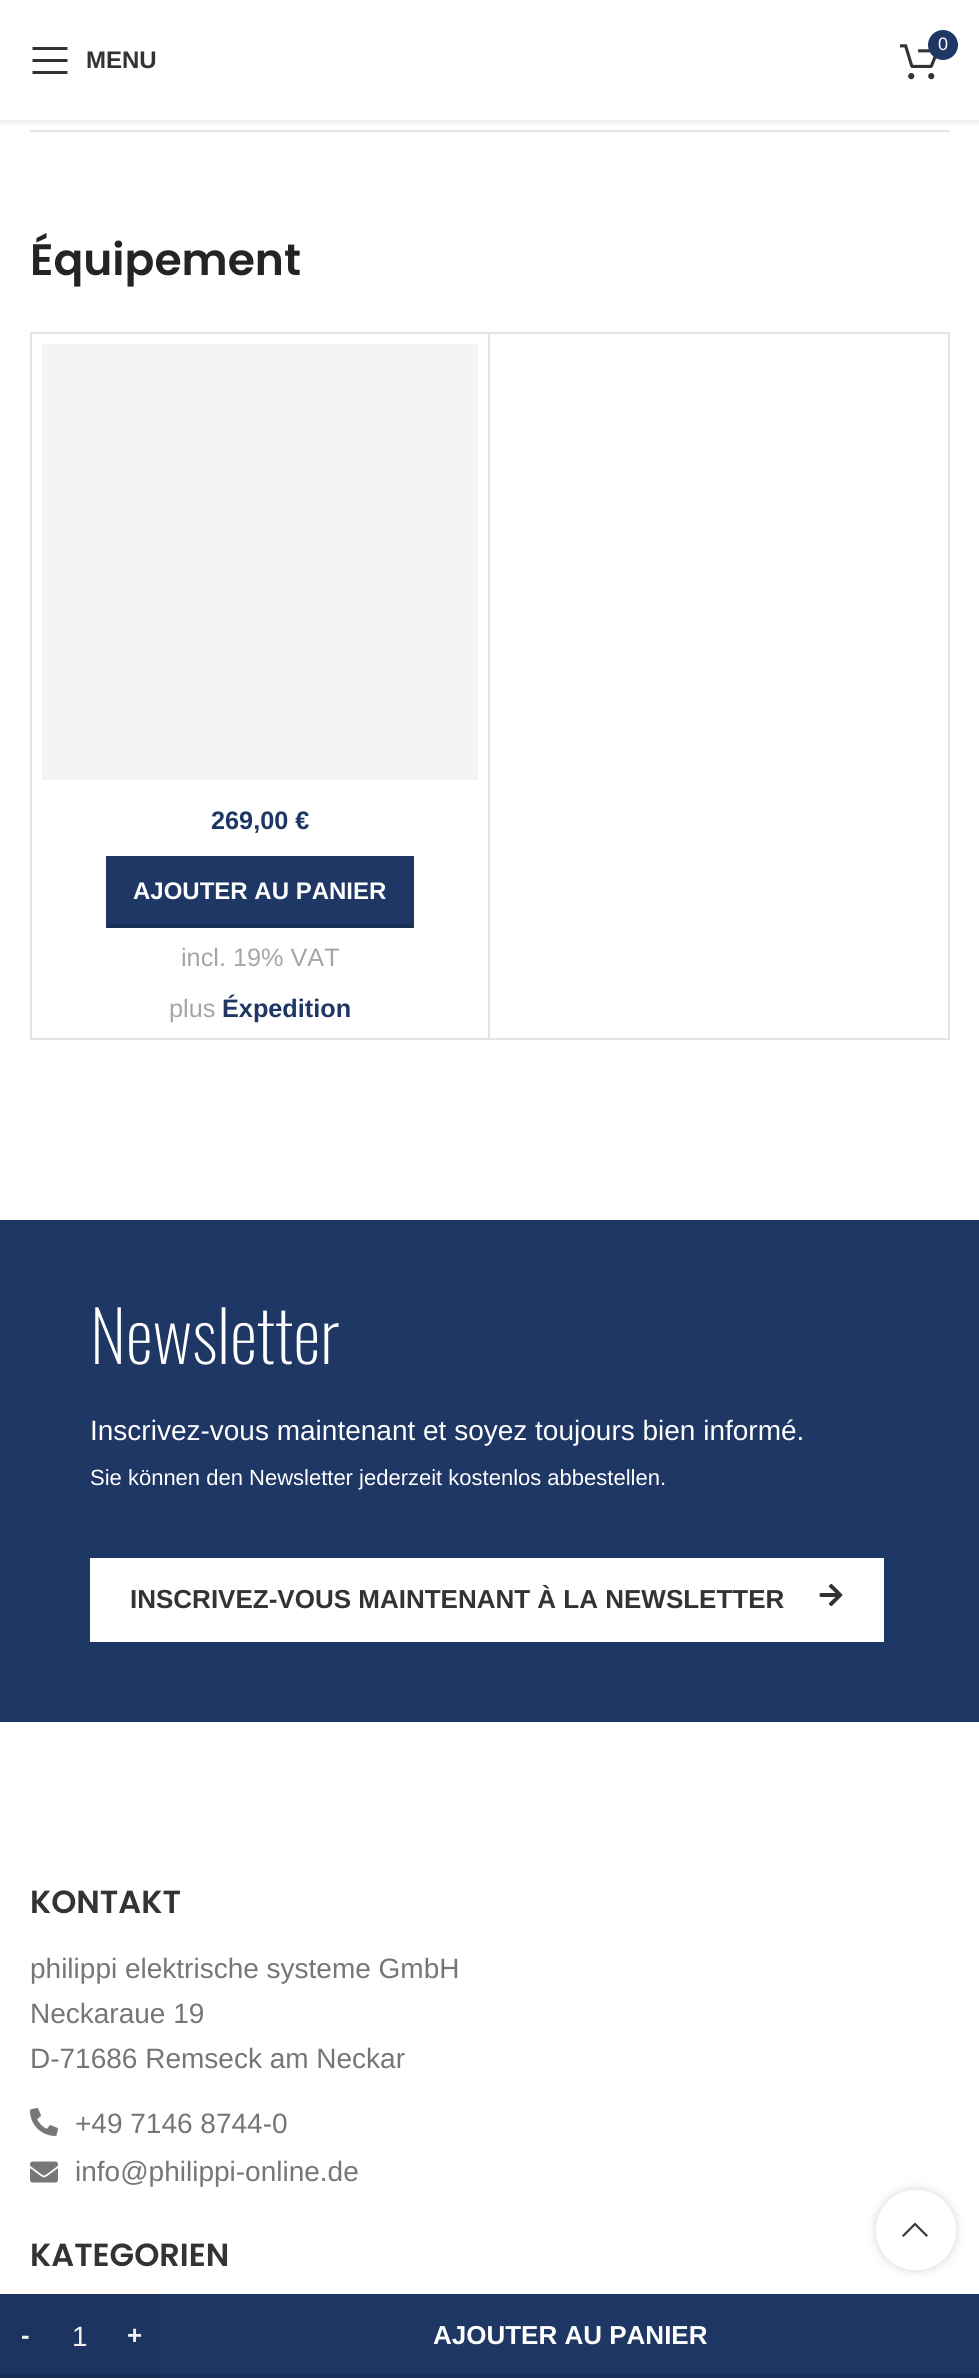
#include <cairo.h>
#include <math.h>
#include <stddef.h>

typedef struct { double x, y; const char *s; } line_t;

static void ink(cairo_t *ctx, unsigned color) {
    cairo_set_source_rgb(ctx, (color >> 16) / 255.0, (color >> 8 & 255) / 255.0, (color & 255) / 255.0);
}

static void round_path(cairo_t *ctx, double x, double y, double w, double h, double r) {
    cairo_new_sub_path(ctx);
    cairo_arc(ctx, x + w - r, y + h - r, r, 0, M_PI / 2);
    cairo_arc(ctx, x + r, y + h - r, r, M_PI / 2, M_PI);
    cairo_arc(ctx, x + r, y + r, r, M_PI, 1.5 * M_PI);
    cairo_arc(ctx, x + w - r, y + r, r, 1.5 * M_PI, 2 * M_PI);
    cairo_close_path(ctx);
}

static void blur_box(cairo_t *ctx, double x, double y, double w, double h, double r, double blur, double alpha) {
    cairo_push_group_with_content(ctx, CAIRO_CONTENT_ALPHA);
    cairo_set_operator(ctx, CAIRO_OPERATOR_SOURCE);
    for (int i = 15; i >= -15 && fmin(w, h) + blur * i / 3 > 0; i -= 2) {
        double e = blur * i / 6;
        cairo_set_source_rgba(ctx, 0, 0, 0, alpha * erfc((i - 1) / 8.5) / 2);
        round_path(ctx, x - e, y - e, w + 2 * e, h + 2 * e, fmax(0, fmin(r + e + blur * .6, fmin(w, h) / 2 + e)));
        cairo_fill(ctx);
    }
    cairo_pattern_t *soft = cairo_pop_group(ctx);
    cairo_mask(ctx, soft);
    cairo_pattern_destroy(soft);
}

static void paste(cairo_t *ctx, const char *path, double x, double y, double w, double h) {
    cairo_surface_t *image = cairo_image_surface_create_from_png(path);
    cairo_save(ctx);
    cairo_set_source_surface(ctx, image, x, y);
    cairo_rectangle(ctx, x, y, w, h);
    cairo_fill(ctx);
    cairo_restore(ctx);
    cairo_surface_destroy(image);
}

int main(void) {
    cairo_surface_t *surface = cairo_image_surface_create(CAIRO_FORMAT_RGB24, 979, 2378);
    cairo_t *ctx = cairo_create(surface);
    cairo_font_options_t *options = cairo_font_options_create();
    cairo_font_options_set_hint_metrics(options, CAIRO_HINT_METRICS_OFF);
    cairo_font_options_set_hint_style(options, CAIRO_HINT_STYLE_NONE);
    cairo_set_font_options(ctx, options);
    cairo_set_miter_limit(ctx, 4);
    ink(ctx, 0xFFFFFF);
    cairo_paint(ctx);
    ink(ctx, 0xE4E4E4);
    cairo_rectangle(ctx, 30, 130, 920, 2);
    cairo_fill(ctx);
    ink(ctx, 0x000000);
    blur_box(ctx, 0, 2, 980, 120, 0, 3, 0.1);
    ink(ctx, 0xFFFFFF);
    cairo_rectangle(ctx, 0, 0, 979, 120);
    cairo_fill(ctx);
    paste(ctx, "media/1.png", 900, 44, 37, 36);
    ink(ctx, 0x1F3765);
    cairo_arc(ctx, 943, 45, 15, 0, 2 * M_PI);
    cairo_fill(ctx);
    cairo_select_font_face(ctx, "Liberation Sans", CAIRO_FONT_SLANT_NORMAL, CAIRO_FONT_WEIGHT_NORMAL);
    cairo_set_font_size(ctx, 18);
    ink(ctx, 0xFFFFFF);
    cairo_move_to(ctx, 938, 50);
    cairo_show_text(ctx, "0");
    ink(ctx, 0x333333);
    cairo_new_path(ctx);
    cairo_move_to(ctx, 32.5, 50);
    cairo_line_to(ctx, 67.5, 50);
    cairo_line_to(ctx, 67.5, 47);
    cairo_line_to(ctx, 32.5, 47);
    cairo_close_path(ctx);
    cairo_move_to(ctx, 32.5, 62);
    cairo_line_to(ctx, 67.5, 62);
    cairo_line_to(ctx, 67.5, 59);
    cairo_line_to(ctx, 32.5, 59);
    cairo_close_path(ctx);
    cairo_move_to(ctx, 32.5, 74);
    cairo_line_to(ctx, 67.5, 74);
    cairo_line_to(ctx, 67.5, 71);
    cairo_line_to(ctx, 32.5, 71);
    cairo_close_path(ctx);
    cairo_fill(ctx);
    cairo_select_font_face(ctx, "Liberation Sans", CAIRO_FONT_SLANT_NORMAL, CAIRO_FONT_WEIGHT_BOLD);
    cairo_set_font_size(ctx, 24);
    cairo_move_to(ctx, 86, 68);
    cairo_show_text(ctx, "MENU");
    cairo_select_font_face(ctx, "Poppins SemiBold", CAIRO_FONT_SLANT_NORMAL, CAIRO_FONT_WEIGHT_NORMAL);
    cairo_set_font_size(ctx, 44);
    ink(ctx, 0x242424);
    cairo_move_to(ctx, 30, 275);
    cairo_show_text(ctx, "Équipement");
    cairo_rectangle(ctx, 31, 333, 918, 706);
    ink(ctx, 0xE4E4E4);
    cairo_stroke(ctx);
    cairo_rectangle(ctx, 488, 334, 2, 704);
    cairo_fill(ctx);
    ink(ctx, 0xF4F4F4);
    cairo_rectangle(ctx, 42, 344, 436, 436);
    cairo_fill(ctx);
    cairo_select_font_face(ctx, "Liberation Sans", CAIRO_FONT_SLANT_NORMAL, CAIRO_FONT_WEIGHT_BOLD);
    cairo_set_font_size(ctx, 25.25);
    ink(ctx, 0x1F3765);
    cairo_move_to(ctx, 211, 829);
    cairo_show_text(ctx, "269,00 €");
    cairo_rectangle(ctx, 106, 856, 308, 68);
    cairo_fill(ctx);
    ink(ctx, 0x1A2F56);
    cairo_rectangle(ctx, 106, 924, 308, 4);
    cairo_fill(ctx);
    cairo_set_font_size(ctx, 24);
    ink(ctx, 0xFFFFFF);
    cairo_move_to(ctx, 133, 899);
    cairo_show_text(ctx, "AJOUTER AU PANIER");
    cairo_select_font_face(ctx, "Liberation Sans", CAIRO_FONT_SLANT_NORMAL, CAIRO_FONT_WEIGHT_NORMAL);
    cairo_set_font_size(ctx, 25.25);
    ink(ctx, 0xA5A5A5);
    cairo_move_to(ctx, 181, 966);
    cairo_show_text(ctx, "incl. 19% VAT");
    cairo_move_to(ctx, 169, 1017);
    cairo_show_text(ctx, "plus");
    cairo_select_font_face(ctx, "Liberation Sans", CAIRO_FONT_SLANT_NORMAL, CAIRO_FONT_WEIGHT_BOLD);
    ink(ctx, 0x1F3765);
    cairo_move_to(ctx, 222, 1017);
    cairo_show_text(ctx, "Éxpedition");
    cairo_rectangle(ctx, 0, 1220, 979, 502);
    cairo_fill(ctx);
    cairo_select_font_face(ctx, "Oswald ExtraLight", CAIRO_FONT_SLANT_NORMAL, CAIRO_FONT_WEIGHT_NORMAL);
    cairo_set_font_size(ctx, 70);
    ink(ctx, 0xFFFFFF);
    cairo_move_to(ctx, 90, 1364);
    cairo_show_text(ctx, "Newsletter");
    cairo_select_font_face(ctx, "Liberation Sans", CAIRO_FONT_SLANT_NORMAL, CAIRO_FONT_WEIGHT_NORMAL);
    cairo_set_font_size(ctx, 28);
    cairo_move_to(ctx, 90, 1440);
    cairo_show_text(ctx, "Inscrivez-vous maintenant et soyez toujours bien informé.");
    cairo_set_font_size(ctx, 22);
    cairo_move_to(ctx, 90, 1485);
    cairo_show_text(ctx, "Sie können den Newsletter jederzeit kostenlos abbestellen.");
    cairo_rectangle(ctx, 90, 1558, 794, 84);
    cairo_fill(ctx);
    cairo_select_font_face(ctx, "Liberation Sans", CAIRO_FONT_SLANT_NORMAL, CAIRO_FONT_WEIGHT_BOLD);
    cairo_set_font_size(ctx, 26);
    ink(ctx, 0x333333);
    cairo_move_to(ctx, 130, 1608);
    cairo_show_text(ctx, "INSCRIVEZ-VOUS MAINTENANT À LA NEWSLETTER");
    paste(ctx, "media/2.png", 819, 1583, 24, 24);
    cairo_select_font_face(ctx, "Poppins SemiBold", CAIRO_FONT_SLANT_NORMAL, CAIRO_FONT_WEIGHT_NORMAL);
    cairo_set_font_size(ctx, 32);
    cairo_move_to(ctx, 30, 1913);
    cairo_show_text(ctx, "KONTAKT");
    cairo_select_font_face(ctx, "Liberation Sans", CAIRO_FONT_SLANT_NORMAL, CAIRO_FONT_WEIGHT_NORMAL);
    cairo_set_font_size(ctx, 28);
    ink(ctx, 0x767676);
    {
        static const line_t items[] = {
            {30, 1978, "philippi elektrische systeme GmbH"},
            {30, 2023, "Neckaraue 19"},
            {30, 2068, "D-71686 Remseck am Neckar"},
        };
        for (size_t i = 0; i < sizeof items / sizeof *items; i++) {
            cairo_move_to(ctx, items[i].x, items[i].y);
            cairo_show_text(ctx, items[i].s);
        }
    }
    paste(ctx, "media/3.png", 30, 2108, 28, 28);
    cairo_move_to(ctx, 75, 2133);
    cairo_show_text(ctx, "+49 7146 8744-0");
    paste(ctx, "media/4.png", 30, 2161, 28, 22);
    cairo_move_to(ctx, 75, 2181);
    cairo_show_text(ctx, "info@philippi-online.de");
    cairo_select_font_face(ctx, "Poppins SemiBold", CAIRO_FONT_SLANT_NORMAL, CAIRO_FONT_WEIGHT_NORMAL);
    cairo_set_font_size(ctx, 32);
    ink(ctx, 0x333333);
    cairo_move_to(ctx, 30, 2266);
    cairo_show_text(ctx, "KATEGORIEN");
    cairo_save(ctx);
    cairo_set_fill_rule(ctx, CAIRO_FILL_RULE_EVEN_ODD);
    cairo_new_path(ctx);
    cairo_move_to(ctx, 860, 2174);
    cairo_line_to(ctx, 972, 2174);
    cairo_line_to(ctx, 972, 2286);
    cairo_line_to(ctx, 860, 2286);
    cairo_close_path(ctx);
    cairo_move_to(ctx, 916, 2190);
    cairo_curve_to(ctx, 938, 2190, 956, 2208, 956, 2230);
    cairo_curve_to(ctx, 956, 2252, 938, 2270, 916, 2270);
    cairo_curve_to(ctx, 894, 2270, 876, 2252, 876, 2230);
    cairo_curve_to(ctx, 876, 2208, 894, 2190, 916, 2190);
    cairo_close_path(ctx);
    cairo_clip(ctx);
    ink(ctx, 0x000000);
    blur_box(ctx, 876, 2190, 80, 80, 40, 5, 0.17);
    cairo_restore(ctx);
    cairo_set_source_rgba(ctx, 1, 1, 1, 0.9);
    cairo_arc(ctx, 916, 2230, 40, 0, 2 * M_PI);
    cairo_fill(ctx);
    ink(ctx, 0x333333);
    cairo_new_path(ctx);
    cairo_move_to(ctx, 926.5, 2237);
    cairo_line_to(ctx, 928, 2235.5);
    cairo_line_to(ctx, 915, 2222.5);
    cairo_line_to(ctx, 902, 2235.5);
    cairo_line_to(ctx, 903.5, 2237);
    cairo_line_to(ctx, 915, 2225.5);
    cairo_close_path(ctx);
    cairo_fill(ctx);
    ink(ctx, 0x1D3460);
    cairo_rectangle(ctx, 0, 2294, 160, 80);
    cairo_fill(ctx);
    cairo_select_font_face(ctx, "Liberation Sans", CAIRO_FONT_SLANT_NORMAL, CAIRO_FONT_WEIGHT_BOLD);
    cairo_set_font_size(ctx, 26);
    ink(ctx, 0xF2F2F2);
    cairo_move_to(ctx, 21, 2344);
    cairo_show_text(ctx, "-");
    ink(ctx, 0x192C52);
    cairo_rectangle(ctx, 0, 2374, 160, 4);
    cairo_fill(ctx);
    cairo_select_font_face(ctx, "Liberation Sans", CAIRO_FONT_SLANT_NORMAL, CAIRO_FONT_WEIGHT_NORMAL);
    cairo_set_font_size(ctx, 28);
    ink(ctx, 0xF2F2F2);
    cairo_move_to(ctx, 72, 2346);
    cairo_show_text(ctx, "1");
    cairo_select_font_face(ctx, "Liberation Sans", CAIRO_FONT_SLANT_NORMAL, CAIRO_FONT_WEIGHT_BOLD);
    cairo_set_font_size(ctx, 26);
    cairo_move_to(ctx, 127, 2344);
    cairo_show_text(ctx, "+");
    ink(ctx, 0x1F3765);
    cairo_rectangle(ctx, 160, 2294, 819, 80);
    cairo_fill(ctx);
    ink(ctx, 0x1A2F56);
    cairo_rectangle(ctx, 160, 2374, 819, 4);
    cairo_fill(ctx);
    ink(ctx, 0xFFFFFF);
    cairo_move_to(ctx, 433, 2344);
    cairo_show_text(ctx, "AJOUTER AU PANIER");
    cairo_surface_write_to_png(surface, "image.png");
    cairo_font_options_destroy(options);
    cairo_destroy(ctx);
    cairo_surface_destroy(surface);
    return 0;
}
